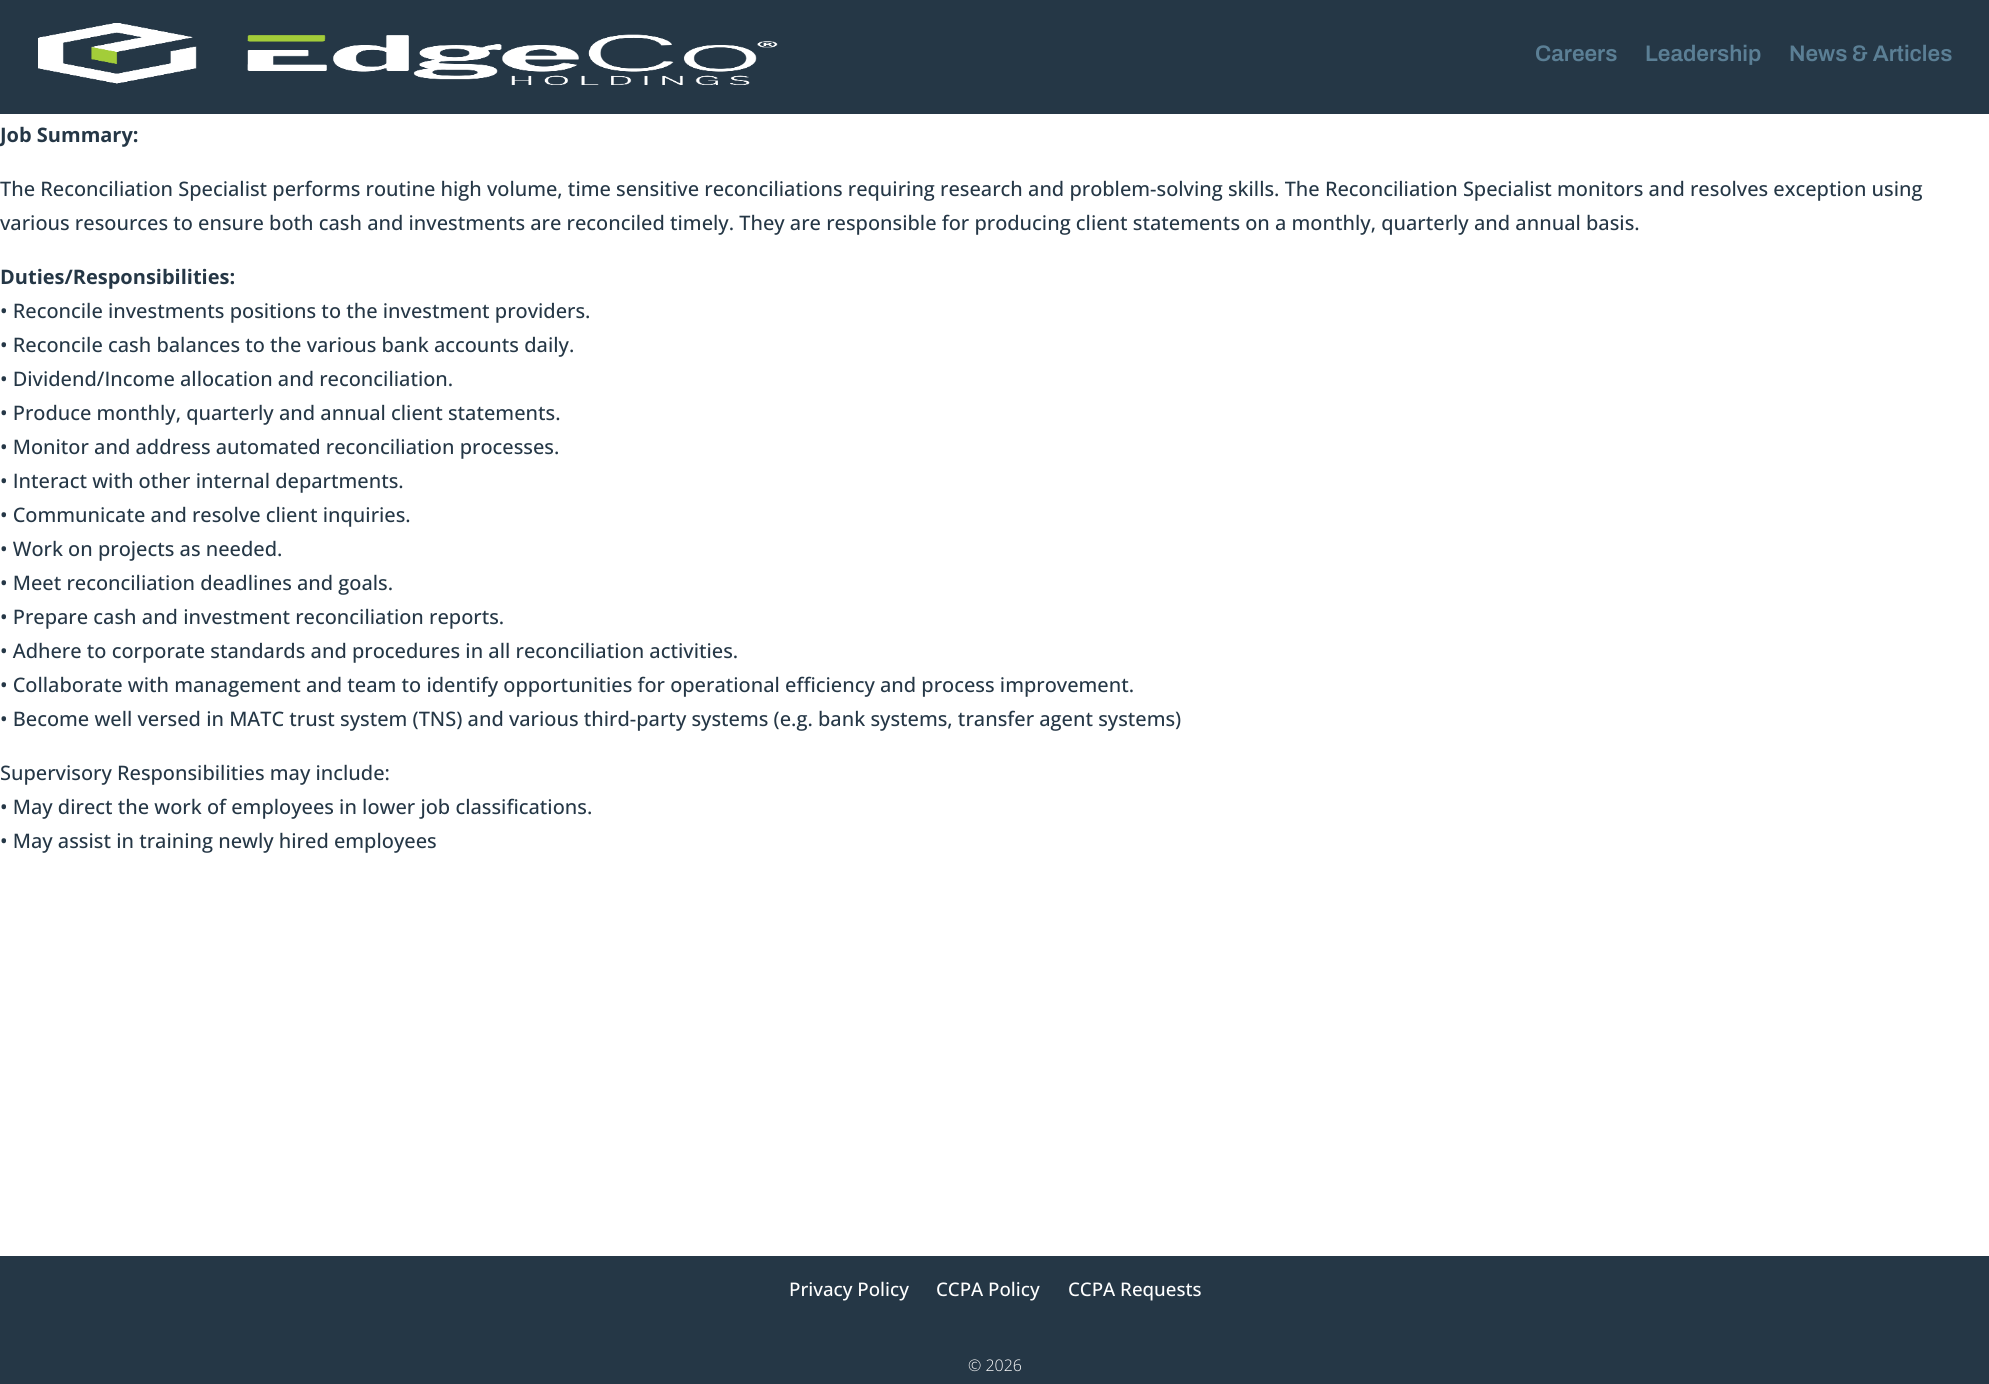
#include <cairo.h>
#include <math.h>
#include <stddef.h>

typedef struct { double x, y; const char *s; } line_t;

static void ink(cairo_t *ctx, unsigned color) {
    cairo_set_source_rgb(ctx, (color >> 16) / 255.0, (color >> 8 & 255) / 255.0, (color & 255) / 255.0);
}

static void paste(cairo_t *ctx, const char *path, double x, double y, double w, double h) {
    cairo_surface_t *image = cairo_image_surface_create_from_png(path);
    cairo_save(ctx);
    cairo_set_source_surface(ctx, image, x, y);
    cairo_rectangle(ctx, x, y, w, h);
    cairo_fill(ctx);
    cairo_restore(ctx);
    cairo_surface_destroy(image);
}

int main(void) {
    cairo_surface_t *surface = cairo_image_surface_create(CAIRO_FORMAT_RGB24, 1989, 1384);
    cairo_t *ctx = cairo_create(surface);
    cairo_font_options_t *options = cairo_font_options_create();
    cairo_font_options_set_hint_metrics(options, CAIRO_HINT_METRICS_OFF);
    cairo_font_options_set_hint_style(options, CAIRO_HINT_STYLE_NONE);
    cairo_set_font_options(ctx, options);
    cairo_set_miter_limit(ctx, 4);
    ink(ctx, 0x253746);
    cairo_paint(ctx);
    paste(ctx, "media/1.png", 38, 23, 740, 62);
    cairo_select_font_face(ctx, "Archivo SemiBold", CAIRO_FONT_SLANT_NORMAL, CAIRO_FONT_WEIGHT_NORMAL);
    cairo_set_font_size(ctx, 22.5);
    ink(ctx, 0x5B7F95);
    {
        static const line_t items[] = {
            {1535, 61, "Careers"},
            {1645, 61, "Leadership"},
            {1789, 61, "News & Articles"},
        };
        for (size_t i = 0; i < sizeof items / sizeof *items; i++) {
            cairo_move_to(ctx, items[i].x, items[i].y);
            cairo_show_text(ctx, items[i].s);
        }
    }
    ink(ctx, 0xFFFFFF);
    cairo_rectangle(ctx, 0, 114, 1989, 1142);
    cairo_fill(ctx);
    cairo_select_font_face(ctx, "Open Sans", CAIRO_FONT_SLANT_NORMAL, CAIRO_FONT_WEIGHT_BOLD);
    cairo_set_font_size(ctx, 20);
    ink(ctx, 0x253746);
    cairo_move_to(ctx, 0, 142);
    cairo_show_text(ctx, "Job Summary:");
    cairo_select_font_face(ctx, "Open Sans Medium", CAIRO_FONT_SLANT_NORMAL, CAIRO_FONT_WEIGHT_NORMAL);
    cairo_move_to(ctx, 0, 196);
    cairo_show_text(ctx, "The Reconciliation Specialist performs routine high volume, time sensitive reconciliations requiring research and problem-solving skills. The Reconciliation Specialist monitors and resolves exception using");
    cairo_move_to(ctx, 0, 230);
    cairo_show_text(ctx, "various resources to ensure both cash and investments are reconciled timely. They are responsible for producing client statements on a monthly, quarterly and annual basis.");
    cairo_select_font_face(ctx, "Open Sans", CAIRO_FONT_SLANT_NORMAL, CAIRO_FONT_WEIGHT_BOLD);
    cairo_move_to(ctx, 0, 284);
    cairo_show_text(ctx, "Duties/Responsibilities:");
    cairo_select_font_face(ctx, "Open Sans Medium", CAIRO_FONT_SLANT_NORMAL, CAIRO_FONT_WEIGHT_NORMAL);
    {
        static const line_t items[] = {
            {0, 318, "• Reconcile investments positions to the investment providers."},
            {0, 352, "• Reconcile cash balances to the various bank accounts daily."},
            {0, 386, "• Dividend/Income allocation and reconciliation."},
            {0, 420, "• Produce monthly, quarterly and annual client statements."},
            {0, 454, "• Monitor and address automated reconciliation processes."},
            {0, 488, "• Interact with other internal departments."},
            {0, 522, "• Communicate and resolve client inquiries."},
            {0, 556, "• Work on projects as needed."},
            {0, 590, "• Meet reconciliation deadlines and goals."},
            {0, 624, "• Prepare cash and investment reconciliation reports."},
            {0, 658, "• Adhere to corporate standards and procedures in all reconciliation activities."},
            {0, 692, "• Collaborate with management and team to identify opportunities for operational efficiency and process improvement."},
            {0, 726, "• Become well versed in MATC trust system (TNS) and various third-party systems (e.g. bank systems, transfer agent systems)"},
            {0, 780, "Supervisory Responsibilities may include:"},
            {0, 814, "• May direct the work of employees in lower job classifications."},
            {0, 848, "• May assist in training newly hired employees"},
        };
        for (size_t i = 0; i < sizeof items / sizeof *items; i++) {
            cairo_move_to(ctx, items[i].x, items[i].y);
            cairo_show_text(ctx, items[i].s);
        }
    }
    cairo_set_font_size(ctx, 18.75);
    ink(ctx, 0xFFFFFF);
    {
        static const line_t items[] = {
            {789, 1296, "Privacy Policy"},
            {936, 1296, "CCPA Policy"},
            {1068, 1296, "CCPA Requests"},
        };
        for (size_t i = 0; i < sizeof items / sizeof *items; i++) {
            cairo_move_to(ctx, items[i].x, items[i].y);
            cairo_show_text(ctx, items[i].s);
        }
    }
    cairo_select_font_face(ctx, "Open Sans Light", CAIRO_FONT_SLANT_NORMAL, CAIRO_FONT_WEIGHT_NORMAL);
    cairo_set_font_size(ctx, 16);
    cairo_move_to(ctx, 968, 1371);
    cairo_show_text(ctx, "© 2026");
    cairo_surface_write_to_png(surface, "image.png");
    cairo_font_options_destroy(options);
    cairo_destroy(ctx);
    cairo_surface_destroy(surface);
    return 0;
}
